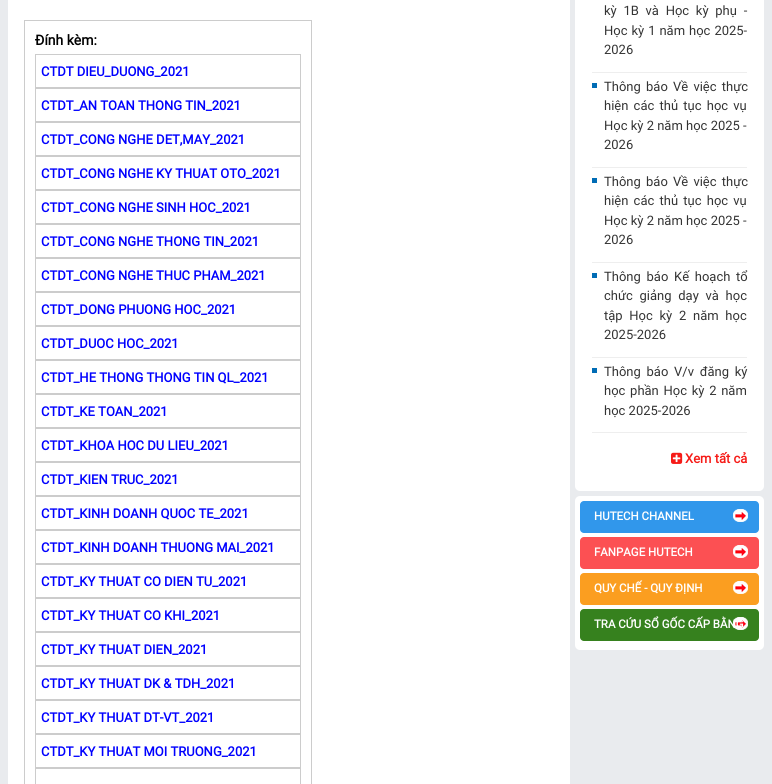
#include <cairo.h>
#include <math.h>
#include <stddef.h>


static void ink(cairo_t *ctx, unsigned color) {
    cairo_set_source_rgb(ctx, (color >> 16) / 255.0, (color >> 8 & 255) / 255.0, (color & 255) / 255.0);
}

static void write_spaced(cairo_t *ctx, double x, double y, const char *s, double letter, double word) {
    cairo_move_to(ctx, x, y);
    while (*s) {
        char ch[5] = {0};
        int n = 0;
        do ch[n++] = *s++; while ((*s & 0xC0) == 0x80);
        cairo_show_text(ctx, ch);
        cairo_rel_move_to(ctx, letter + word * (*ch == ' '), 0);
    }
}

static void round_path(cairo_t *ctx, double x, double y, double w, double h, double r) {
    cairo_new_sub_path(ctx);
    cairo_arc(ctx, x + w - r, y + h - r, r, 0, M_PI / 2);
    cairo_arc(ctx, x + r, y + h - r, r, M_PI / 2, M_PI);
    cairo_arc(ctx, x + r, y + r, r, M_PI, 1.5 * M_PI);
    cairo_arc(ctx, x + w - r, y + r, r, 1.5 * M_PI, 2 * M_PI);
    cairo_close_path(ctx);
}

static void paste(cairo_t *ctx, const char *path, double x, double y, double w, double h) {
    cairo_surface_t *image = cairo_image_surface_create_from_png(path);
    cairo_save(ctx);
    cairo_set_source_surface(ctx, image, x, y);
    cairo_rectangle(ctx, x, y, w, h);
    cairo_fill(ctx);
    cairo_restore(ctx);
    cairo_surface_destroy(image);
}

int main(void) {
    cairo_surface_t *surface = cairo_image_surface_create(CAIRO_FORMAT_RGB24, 772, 784);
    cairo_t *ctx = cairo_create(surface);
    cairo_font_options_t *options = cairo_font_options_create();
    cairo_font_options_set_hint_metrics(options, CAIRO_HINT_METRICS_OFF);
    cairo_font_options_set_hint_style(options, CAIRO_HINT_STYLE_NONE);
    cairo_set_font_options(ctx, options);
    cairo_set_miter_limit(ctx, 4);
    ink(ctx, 0xE9EBEE);
    cairo_paint(ctx);
    ink(ctx, 0xFFFFFF);
    cairo_rectangle(ctx, 8, 0, 562, 784);
    cairo_fill(ctx);
    cairo_rectangle(ctx, 24.5, 20.5, 287, 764);
    ink(ctx, 0xCCCCCC);
    cairo_set_line_width(ctx, 1);
    cairo_stroke(ctx);
    cairo_select_font_face(ctx, "Roboto", CAIRO_FONT_SLANT_NORMAL, CAIRO_FONT_WEIGHT_BOLD);
    cairo_set_font_size(ctx, 14);
    ink(ctx, 0x000000);
    cairo_move_to(ctx, 35, 45);
    cairo_show_text(ctx, "Đính kèm:");
    cairo_rectangle(ctx, 35.5, 54.5, 265, 33);
    ink(ctx, 0xCCCCCC);
    cairo_stroke(ctx);
    cairo_set_font_size(ctx, 13);
    ink(ctx, 0x0000FF);
    cairo_move_to(ctx, 41, 76);
    cairo_show_text(ctx, "CTDT DIEU_DUONG_2021");
    cairo_rectangle(ctx, 35.5, 88.5, 265, 33);
    ink(ctx, 0xCCCCCC);
    cairo_stroke(ctx);
    ink(ctx, 0x0000FF);
    cairo_move_to(ctx, 41, 110);
    cairo_show_text(ctx, "CTDT_AN TOAN THONG TIN_2021");
    cairo_rectangle(ctx, 35.5, 122.5, 265, 33);
    ink(ctx, 0xCCCCCC);
    cairo_stroke(ctx);
    ink(ctx, 0x0000FF);
    cairo_move_to(ctx, 41, 144);
    cairo_show_text(ctx, "CTDT_CONG NGHE DET,MAY_2021");
    cairo_rectangle(ctx, 35.5, 156.5, 265, 33);
    ink(ctx, 0xCCCCCC);
    cairo_stroke(ctx);
    ink(ctx, 0x0000FF);
    cairo_move_to(ctx, 41, 178);
    cairo_show_text(ctx, "CTDT_CONG NGHE KY THUAT OTO_2021");
    cairo_rectangle(ctx, 35.5, 190.5, 265, 33);
    ink(ctx, 0xCCCCCC);
    cairo_stroke(ctx);
    ink(ctx, 0x0000FF);
    cairo_move_to(ctx, 41, 212);
    cairo_show_text(ctx, "CTDT_CONG NGHE SINH HOC_2021");
    cairo_rectangle(ctx, 35.5, 224.5, 265, 33);
    ink(ctx, 0xCCCCCC);
    cairo_stroke(ctx);
    ink(ctx, 0x0000FF);
    cairo_move_to(ctx, 41, 246);
    cairo_show_text(ctx, "CTDT_CONG NGHE THONG TIN_2021");
    cairo_rectangle(ctx, 35.5, 258.5, 265, 33);
    ink(ctx, 0xCCCCCC);
    cairo_stroke(ctx);
    ink(ctx, 0x0000FF);
    cairo_move_to(ctx, 41, 280);
    cairo_show_text(ctx, "CTDT_CONG NGHE THUC PHAM_2021");
    cairo_rectangle(ctx, 35.5, 292.5, 265, 33);
    ink(ctx, 0xCCCCCC);
    cairo_stroke(ctx);
    ink(ctx, 0x0000FF);
    cairo_move_to(ctx, 41, 314);
    cairo_show_text(ctx, "CTDT_DONG PHUONG HOC_2021");
    cairo_rectangle(ctx, 35.5, 326.5, 265, 33);
    ink(ctx, 0xCCCCCC);
    cairo_stroke(ctx);
    ink(ctx, 0x0000FF);
    cairo_move_to(ctx, 41, 348);
    cairo_show_text(ctx, "CTDT_DUOC HOC_2021");
    cairo_rectangle(ctx, 35.5, 360.5, 265, 33);
    ink(ctx, 0xCCCCCC);
    cairo_stroke(ctx);
    ink(ctx, 0x0000FF);
    cairo_move_to(ctx, 41, 382);
    cairo_show_text(ctx, "CTDT_HE THONG THONG TIN QL_2021");
    cairo_rectangle(ctx, 35.5, 394.5, 265, 33);
    ink(ctx, 0xCCCCCC);
    cairo_stroke(ctx);
    ink(ctx, 0x0000FF);
    cairo_move_to(ctx, 41, 416);
    cairo_show_text(ctx, "CTDT_KE TOAN_2021");
    cairo_rectangle(ctx, 35.5, 428.5, 265, 33);
    ink(ctx, 0xCCCCCC);
    cairo_stroke(ctx);
    ink(ctx, 0x0000FF);
    cairo_move_to(ctx, 41, 450);
    cairo_show_text(ctx, "CTDT_KHOA HOC DU LIEU_2021");
    cairo_rectangle(ctx, 35.5, 462.5, 265, 33);
    ink(ctx, 0xCCCCCC);
    cairo_stroke(ctx);
    ink(ctx, 0x0000FF);
    cairo_move_to(ctx, 41, 484);
    cairo_show_text(ctx, "CTDT_KIEN TRUC_2021");
    cairo_rectangle(ctx, 35.5, 496.5, 265, 33);
    ink(ctx, 0xCCCCCC);
    cairo_stroke(ctx);
    ink(ctx, 0x0000FF);
    cairo_move_to(ctx, 41, 518);
    cairo_show_text(ctx, "CTDT_KINH DOANH QUOC TE_2021");
    cairo_rectangle(ctx, 35.5, 530.5, 265, 33);
    ink(ctx, 0xCCCCCC);
    cairo_stroke(ctx);
    ink(ctx, 0x0000FF);
    cairo_move_to(ctx, 41, 552);
    cairo_show_text(ctx, "CTDT_KINH DOANH THUONG MAI_2021");
    cairo_rectangle(ctx, 35.5, 564.5, 265, 33);
    ink(ctx, 0xCCCCCC);
    cairo_stroke(ctx);
    ink(ctx, 0x0000FF);
    cairo_move_to(ctx, 41, 586);
    cairo_show_text(ctx, "CTDT_KY THUAT CO DIEN TU_2021");
    cairo_rectangle(ctx, 35.5, 598.5, 265, 33);
    ink(ctx, 0xCCCCCC);
    cairo_stroke(ctx);
    ink(ctx, 0x0000FF);
    cairo_move_to(ctx, 41, 620);
    cairo_show_text(ctx, "CTDT_KY THUAT CO KHI_2021");
    cairo_rectangle(ctx, 35.5, 632.5, 265, 33);
    ink(ctx, 0xCCCCCC);
    cairo_stroke(ctx);
    ink(ctx, 0x0000FF);
    cairo_move_to(ctx, 41, 654);
    cairo_show_text(ctx, "CTDT_KY THUAT DIEN_2021");
    cairo_rectangle(ctx, 35.5, 666.5, 265, 33);
    ink(ctx, 0xCCCCCC);
    cairo_stroke(ctx);
    ink(ctx, 0x0000FF);
    cairo_move_to(ctx, 41, 688);
    cairo_show_text(ctx, "CTDT_KY THUAT DK & TDH_2021");
    cairo_rectangle(ctx, 35.5, 700.5, 265, 33);
    ink(ctx, 0xCCCCCC);
    cairo_stroke(ctx);
    ink(ctx, 0x0000FF);
    cairo_move_to(ctx, 41, 722);
    cairo_show_text(ctx, "CTDT_KY THUAT DT-VT_2021");
    cairo_rectangle(ctx, 35.5, 734.5, 265, 33);
    ink(ctx, 0xCCCCCC);
    cairo_stroke(ctx);
    ink(ctx, 0x0000FF);
    cairo_move_to(ctx, 41, 756);
    cairo_show_text(ctx, "CTDT_KY THUAT MOI TRUONG_2021");
    cairo_rectangle(ctx, 35.5, 768.5, 265, 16);
    ink(ctx, 0xCCCCCC);
    cairo_stroke(ctx);
    ink(ctx, 0xFFFFFF);
    round_path(ctx, 575, -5, 189, 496, 5);
    cairo_fill(ctx);
    ink(ctx, 0xEEEEEE);
    cairo_rectangle(ctx, 592, 72, 155, 1);
    cairo_fill(ctx);
    cairo_select_font_face(ctx, "Roboto", CAIRO_FONT_SLANT_NORMAL, CAIRO_FONT_WEIGHT_NORMAL);
    ink(ctx, 0x333333);
    write_spaced(ctx, 604, 15, "kỳ 1B và Học kỳ phụ -", 0, 3.5);
    write_spaced(ctx, 604, 35, "Học kỳ 1 năm học 2025-", 0, 0.75);
    cairo_move_to(ctx, 604, 54);
    cairo_show_text(ctx, "2026");
    ink(ctx, 0x006CB5);
    cairo_rectangle(ctx, 592, 83, 5, 5);
    cairo_fill(ctx);
    ink(ctx, 0xEEEEEE);
    cairo_rectangle(ctx, 592, 167, 155, 1);
    cairo_fill(ctx);
    ink(ctx, 0x333333);
    write_spaced(ctx, 604, 91, "Thông báo Về việc thực", 0, 2);
    write_spaced(ctx, 604, 110, "hiện các thủ tục học vụ", 0, 2);
    cairo_move_to(ctx, 604, 130);
    cairo_show_text(ctx, "Học kỳ 2 năm học 2025 -");
    cairo_move_to(ctx, 604, 149);
    cairo_show_text(ctx, "2026");
    ink(ctx, 0x006CB5);
    cairo_rectangle(ctx, 592, 178, 5, 5);
    cairo_fill(ctx);
    ink(ctx, 0xEEEEEE);
    cairo_rectangle(ctx, 592, 262, 155, 1);
    cairo_fill(ctx);
    ink(ctx, 0x333333);
    write_spaced(ctx, 604, 186, "Thông báo Về việc thực", 0, 2);
    write_spaced(ctx, 604, 205, "hiện các thủ tục học vụ", 0, 2);
    cairo_move_to(ctx, 604, 225);
    cairo_show_text(ctx, "Học kỳ 2 năm học 2025 -");
    cairo_move_to(ctx, 604, 244);
    cairo_show_text(ctx, "2026");
    ink(ctx, 0x006CB5);
    cairo_rectangle(ctx, 592, 273, 5, 5);
    cairo_fill(ctx);
    ink(ctx, 0xEEEEEE);
    cairo_rectangle(ctx, 592, 357, 155, 1);
    cairo_fill(ctx);
    ink(ctx, 0x333333);
    write_spaced(ctx, 604, 281, "Thông báo Kế hoạch tổ", 0, 2.5);
    write_spaced(ctx, 604, 300, "chức giảng dạy và học", 0, 3.5);
    write_spaced(ctx, 604, 320, "tập Học kỳ 2 năm học", 0, 3.5);
    cairo_move_to(ctx, 604, 339);
    cairo_show_text(ctx, "2025-2026");
    ink(ctx, 0x006CB5);
    cairo_rectangle(ctx, 592, 368, 5, 5);
    cairo_fill(ctx);
    ink(ctx, 0xEEEEEE);
    cairo_rectangle(ctx, 592, 432, 155, 1);
    cairo_fill(ctx);
    ink(ctx, 0x333333);
    write_spaced(ctx, 604, 376, "Thông báo V/v đăng ký", 0, 2.5);
    write_spaced(ctx, 604, 395, "học phần Học kỳ 2 năm", 0, 1.5);
    cairo_move_to(ctx, 604, 415);
    cairo_show_text(ctx, "học 2025-2026");
    paste(ctx, "media/1.png", 671, 452, 12, 12);
    cairo_select_font_face(ctx, "Roboto", CAIRO_FONT_SLANT_NORMAL, CAIRO_FONT_WEIGHT_BOLD);
    ink(ctx, 0xF61B17);
    cairo_move_to(ctx, 685, 463);
    cairo_show_text(ctx, "Xem tất cả");
    ink(ctx, 0xFFFFFF);
    round_path(ctx, 575, 496, 189, 154, 5);
    cairo_fill(ctx);
    ink(ctx, 0x3197EB);
    round_path(ctx, 580, 501, 179, 32, 4);
    cairo_fill(ctx);
    paste(ctx, "media/2.png", 733, 509, 15, 13);
    cairo_set_font_size(ctx, 11.5);
    ink(ctx, 0xFFFFFF);
    cairo_move_to(ctx, 594, 520);
    cairo_show_text(ctx, "HUTECH CHANNEL");
    ink(ctx, 0xFC5053);
    round_path(ctx, 580, 537, 179, 32, 4);
    cairo_fill(ctx);
    paste(ctx, "media/3.png", 733, 545, 15, 13);
    ink(ctx, 0xFFFFFF);
    cairo_move_to(ctx, 594, 556);
    cairo_show_text(ctx, "FANPAGE HUTECH");
    ink(ctx, 0xFB9E20);
    round_path(ctx, 580, 573, 179, 32, 4);
    cairo_fill(ctx);
    paste(ctx, "media/4.png", 733, 581, 15, 13);
    ink(ctx, 0xFFFFFF);
    cairo_move_to(ctx, 594, 592);
    cairo_show_text(ctx, "QUY CHẾ - QUY ĐỊNH");
    ink(ctx, 0x36811E);
    round_path(ctx, 580, 609, 179, 32, 4);
    cairo_fill(ctx);
    paste(ctx, "media/5.png", 733, 617, 15, 13);
    ink(ctx, 0xFFFFFF);
    cairo_move_to(ctx, 594, 628);
    cairo_show_text(ctx, "TRA CỨU SỔ GỐC CẤP BẰNG");
    cairo_surface_write_to_png(surface, "image.png");
    cairo_font_options_destroy(options);
    cairo_destroy(ctx);
    cairo_surface_destroy(surface);
    return 0;
}
